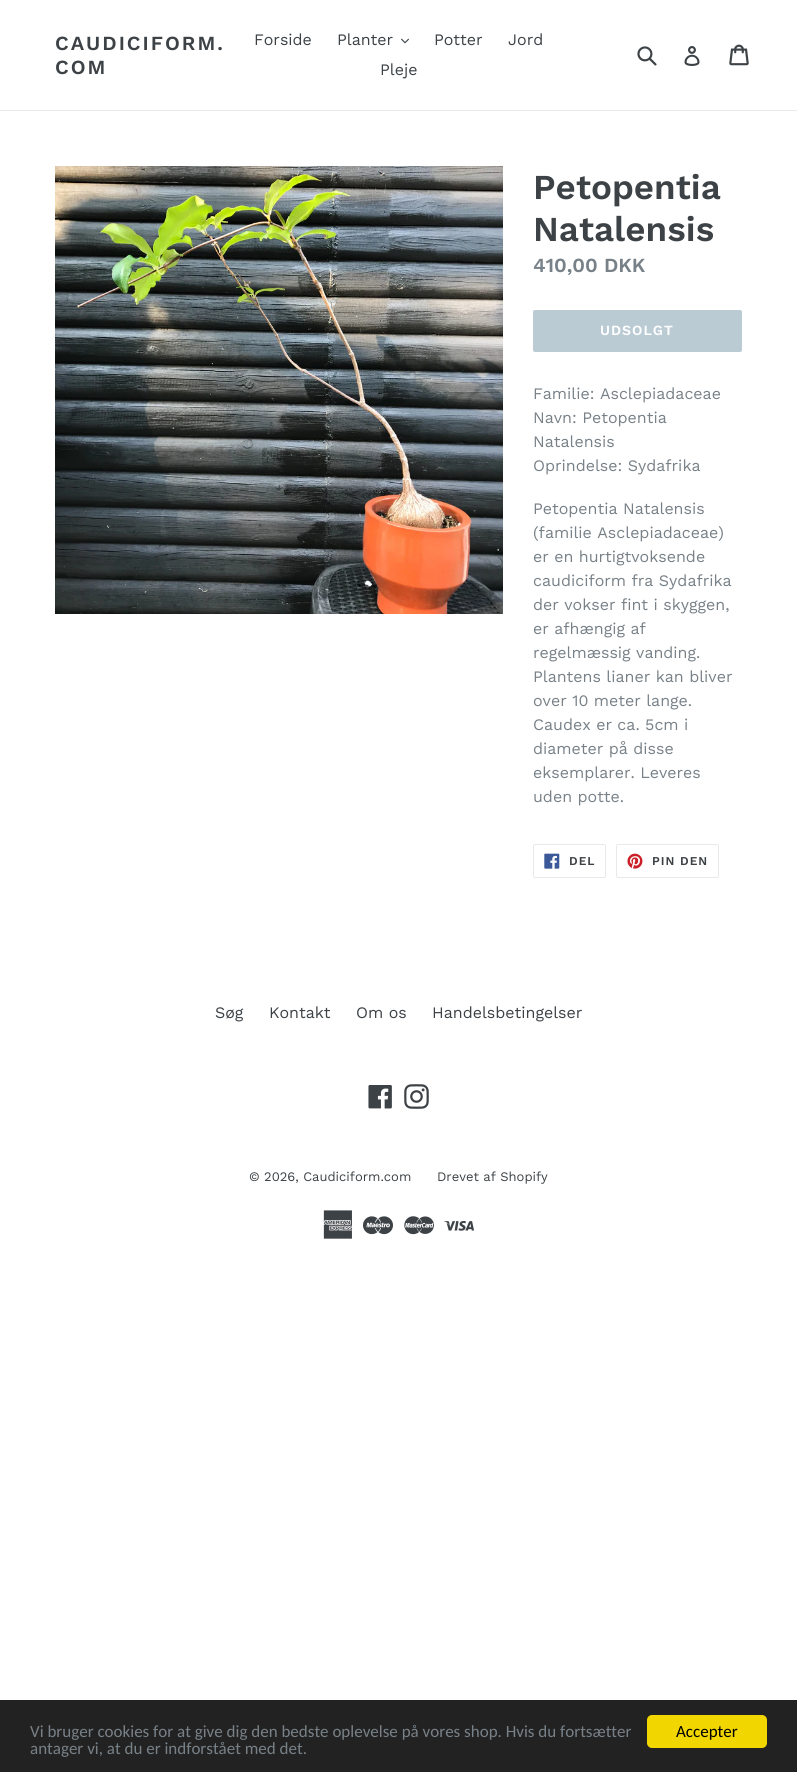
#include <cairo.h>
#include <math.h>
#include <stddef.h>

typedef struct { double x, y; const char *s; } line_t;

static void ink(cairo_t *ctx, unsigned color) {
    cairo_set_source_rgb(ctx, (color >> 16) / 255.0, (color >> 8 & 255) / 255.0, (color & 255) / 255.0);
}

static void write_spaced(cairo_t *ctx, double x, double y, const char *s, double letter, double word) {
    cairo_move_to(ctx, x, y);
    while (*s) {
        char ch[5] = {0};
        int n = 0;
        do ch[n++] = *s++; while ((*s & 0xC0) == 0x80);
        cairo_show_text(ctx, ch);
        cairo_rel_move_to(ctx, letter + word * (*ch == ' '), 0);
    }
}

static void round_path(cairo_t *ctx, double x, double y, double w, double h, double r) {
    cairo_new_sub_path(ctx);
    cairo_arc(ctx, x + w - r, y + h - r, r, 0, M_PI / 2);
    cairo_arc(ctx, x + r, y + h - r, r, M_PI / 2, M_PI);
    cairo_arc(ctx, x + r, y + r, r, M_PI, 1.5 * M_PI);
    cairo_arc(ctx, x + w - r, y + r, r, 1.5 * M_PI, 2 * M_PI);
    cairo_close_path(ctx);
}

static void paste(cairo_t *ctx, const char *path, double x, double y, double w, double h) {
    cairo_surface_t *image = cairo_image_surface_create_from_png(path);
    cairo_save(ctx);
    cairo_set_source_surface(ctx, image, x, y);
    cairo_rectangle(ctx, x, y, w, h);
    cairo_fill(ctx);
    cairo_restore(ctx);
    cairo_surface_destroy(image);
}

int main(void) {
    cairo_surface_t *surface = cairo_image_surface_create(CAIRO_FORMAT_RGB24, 797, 1772);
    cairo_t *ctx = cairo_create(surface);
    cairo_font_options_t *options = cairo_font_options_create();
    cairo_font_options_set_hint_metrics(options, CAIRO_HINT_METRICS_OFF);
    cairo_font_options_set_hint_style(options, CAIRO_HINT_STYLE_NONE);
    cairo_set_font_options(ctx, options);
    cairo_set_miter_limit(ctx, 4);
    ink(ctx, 0xFFFFFF);
    cairo_paint(ctx);
    ink(ctx, 0xE8E9EB);
    cairo_rectangle(ctx, 0, 110, 797, 1);
    cairo_fill(ctx);
    cairo_select_font_face(ctx, "Work Sans SemiBold", CAIRO_FONT_SLANT_NORMAL, CAIRO_FONT_WEIGHT_NORMAL);
    cairo_set_font_size(ctx, 20);
    ink(ctx, 0x3D4246);
    write_spaced(ctx, 55, 50, "CAUDICIFORM.", 2, 0);
    write_spaced(ctx, 55, 74, "COM", 2, 0);
    cairo_select_font_face(ctx, "Work Sans", CAIRO_FONT_SLANT_NORMAL, CAIRO_FONT_WEIGHT_NORMAL);
    cairo_set_font_size(ctx, 16);
    cairo_move_to(ctx, 254, 45);
    cairo_show_text(ctx, "Forside");
    cairo_move_to(ctx, 337, 45);
    cairo_show_text(ctx, "Planter");
    paste(ctx, "media/1.png", 401, 38, 8, 6);
    {
        static const line_t items[] = {
            {434, 45, "Potter"},
            {508, 45, "Jord"},
            {380, 75, "Pleje"},
        };
        for (size_t i = 0; i < sizeof items / sizeof *items; i++) {
            cairo_move_to(ctx, items[i].x, items[i].y);
            cairo_show_text(ctx, items[i].s);
        }
    }
    paste(ctx, "media/2.png", 637, 46, 20, 20);
    paste(ctx, "media/3.png", 684, 46, 16, 20);
    paste(ctx, "media/4.png", 729, 44, 20, 22);
    paste(ctx, "media/5.png", 55, 166, 448, 448);
    cairo_select_font_face(ctx, "Work Sans SemiBold", CAIRO_FONT_SLANT_NORMAL, CAIRO_FONT_WEIGHT_NORMAL);
    cairo_set_font_size(ctx, 35);
    cairo_move_to(ctx, 533, 199);
    cairo_show_text(ctx, "Petopentia");
    cairo_move_to(ctx, 533, 241);
    cairo_show_text(ctx, "Natalensis");
    cairo_set_font_size(ctx, 20);
    ink(ctx, 0x788188);
    cairo_move_to(ctx, 533, 272);
    cairo_show_text(ctx, "410,00 DKK");
    ink(ctx, 0xBBCBD4);
    round_path(ctx, 533, 310, 209, 42, 2);
    cairo_fill(ctx);
    cairo_set_font_size(ctx, 14);
    ink(ctx, 0xFFFFFF);
    write_spaced(ctx, 600, 335, "UDSOLGT", 1, 0);
    cairo_select_font_face(ctx, "Work Sans", CAIRO_FONT_SLANT_NORMAL, CAIRO_FONT_WEIGHT_NORMAL);
    cairo_set_font_size(ctx, 16);
    ink(ctx, 0x788188);
    {
        static const line_t items[] = {
            {533, 399, "Familie: Asclepiadaceae"},
            {533, 423, "Navn: Petopentia"},
            {533, 447, "Natalensis"},
            {533, 471, "Oprindelse: Sydafrika"},
            {533, 514, "Petopentia Natalensis"},
            {533, 538, "(familie Asclepiadaceae)"},
            {533, 562, "er en hurtigtvoksende"},
            {533, 586, "caudiciform fra Sydafrika"},
            {533, 610, "der vokser fint i skyggen,"},
            {533, 634, "er afhængig af"},
            {533, 658, "regelmæssig vanding."},
            {533, 682, "Plantens lianer kan bliver"},
            {533, 706, "over 10 meter lange."},
            {533, 730, "Caudex er ca. 5cm i"},
            {533, 754, "diameter på disse"},
            {533, 778, "eksemplarer. Leveres"},
            {533, 802, "uden potte."},
        };
        for (size_t i = 0; i < sizeof items / sizeof *items; i++) {
            cairo_move_to(ctx, items[i].x, items[i].y);
            cairo_show_text(ctx, items[i].s);
        }
    }
    round_path(ctx, 533.5, 844.5, 72, 33, 1.5);
    ink(ctx, 0xE8E9EB);
    cairo_set_line_width(ctx, 1);
    cairo_stroke(ctx);
    paste(ctx, "media/6.png", 544, 853, 16, 16);
    cairo_select_font_face(ctx, "Work Sans SemiBold", CAIRO_FONT_SLANT_NORMAL, CAIRO_FONT_WEIGHT_NORMAL);
    cairo_set_font_size(ctx, 12);
    ink(ctx, 0x3D4246);
    write_spaced(ctx, 569, 865, "DEL", 1, 0);
    round_path(ctx, 616.5, 844.5, 102, 33, 1.5);
    ink(ctx, 0xE8E9EB);
    cairo_stroke(ctx);
    paste(ctx, "media/7.png", 627, 853, 16, 16);
    ink(ctx, 0x3D4246);
    write_spaced(ctx, 652, 865, "PIN DEN", 1, 0);
    cairo_select_font_face(ctx, "Work Sans", CAIRO_FONT_SLANT_NORMAL, CAIRO_FONT_WEIGHT_NORMAL);
    cairo_set_font_size(ctx, 16);
    {
        static const line_t items[] = {
            {215, 1018, "Søg"},
            {269, 1018, "Kontakt"},
            {356, 1018, "Om os"},
            {432, 1018, "Handelsbetingelser"},
        };
        for (size_t i = 0; i < sizeof items / sizeof *items; i++) {
            cairo_move_to(ctx, items[i].x, items[i].y);
            cairo_show_text(ctx, items[i].s);
        }
    }
    paste(ctx, "media/8.png", 368, 1085, 24, 24);
    paste(ctx, "media/9.png", 404, 1084, 25, 25);
    cairo_set_font_size(ctx, 13);
    cairo_move_to(ctx, 249, 1181);
    cairo_show_text(ctx, "© 2026, Caudiciform.com");
    cairo_move_to(ctx, 437, 1181);
    cairo_show_text(ctx, "Drevet af Shopify");
    paste(ctx, "media/10.png", 323, 1210, 30, 29);
    paste(ctx, "media/11.png", 363, 1216, 30, 19);
    paste(ctx, "media/12.png", 404, 1216, 30, 19);
    paste(ctx, "media/13.png", 444, 1221, 30, 10);
    ink(ctx, 0x222222);
    cairo_rectangle(ctx, 0, 1700, 797, 72);
    cairo_fill(ctx);
    cairo_select_font_face(ctx, "Carlito", CAIRO_FONT_SLANT_NORMAL, CAIRO_FONT_WEIGHT_NORMAL);
    cairo_set_font_size(ctx, 17);
    ink(ctx, 0x788188);
    cairo_move_to(ctx, 30, 1737);
    cairo_show_text(ctx, "Vi bruger cookies for at give dig den bedste oplevelse på vores shop. Hvis du fortsætter");
    cairo_move_to(ctx, 30, 1754);
    cairo_show_text(ctx, "antager vi, at du er indforstået med det.");
    ink(ctx, 0xF1D600);
    round_path(ctx, 647, 1715, 120, 33, 5);
    cairo_fill(ctx);
    ink(ctx, 0x000000);
    cairo_move_to(ctx, 676, 1737);
    cairo_show_text(ctx, "Accepter");
    cairo_surface_write_to_png(surface, "image.png");
    cairo_font_options_destroy(options);
    cairo_destroy(ctx);
    cairo_surface_destroy(surface);
    return 0;
}
